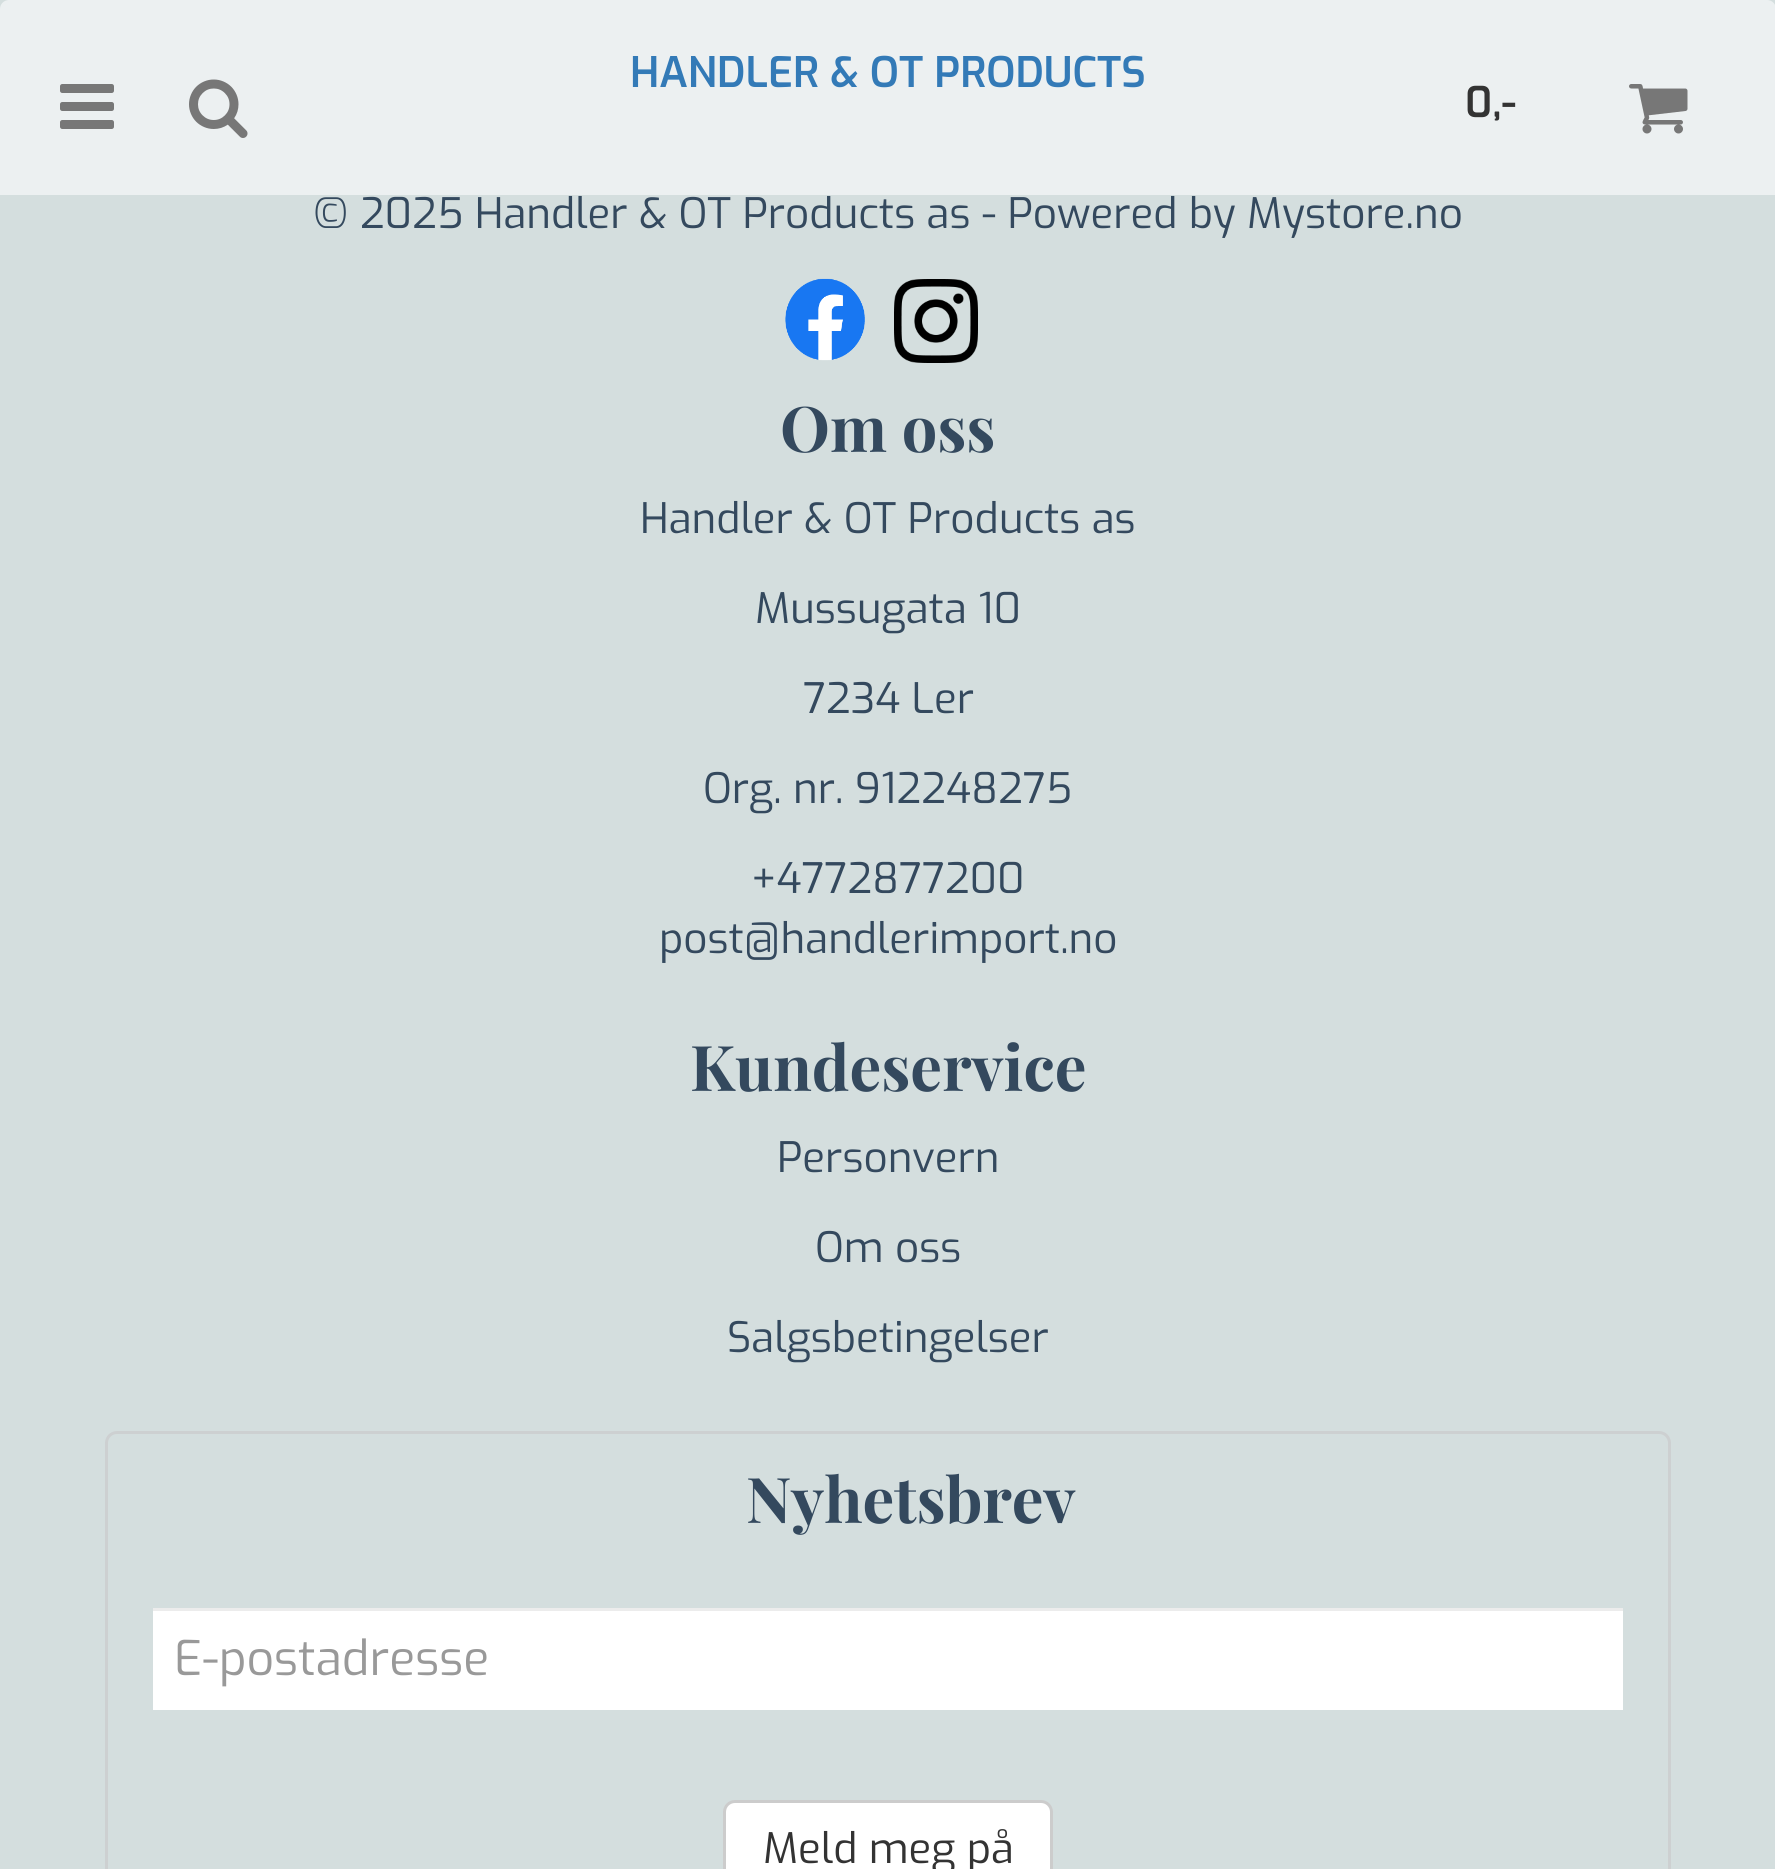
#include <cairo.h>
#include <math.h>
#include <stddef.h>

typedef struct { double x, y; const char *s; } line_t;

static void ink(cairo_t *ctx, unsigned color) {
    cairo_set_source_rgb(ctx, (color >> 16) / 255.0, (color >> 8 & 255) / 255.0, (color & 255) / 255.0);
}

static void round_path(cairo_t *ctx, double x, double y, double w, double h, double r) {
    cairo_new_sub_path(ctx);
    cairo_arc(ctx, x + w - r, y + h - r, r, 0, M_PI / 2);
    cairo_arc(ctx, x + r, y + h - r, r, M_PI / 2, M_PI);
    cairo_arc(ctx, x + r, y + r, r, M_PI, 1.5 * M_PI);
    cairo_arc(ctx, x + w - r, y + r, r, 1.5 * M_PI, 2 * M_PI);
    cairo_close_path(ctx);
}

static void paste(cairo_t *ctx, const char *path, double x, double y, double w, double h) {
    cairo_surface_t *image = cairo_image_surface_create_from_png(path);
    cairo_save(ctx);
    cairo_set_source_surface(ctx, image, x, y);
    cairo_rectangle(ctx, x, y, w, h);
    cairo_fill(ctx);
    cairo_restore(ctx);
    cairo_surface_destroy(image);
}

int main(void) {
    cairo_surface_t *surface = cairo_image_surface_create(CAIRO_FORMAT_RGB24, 1775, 1869);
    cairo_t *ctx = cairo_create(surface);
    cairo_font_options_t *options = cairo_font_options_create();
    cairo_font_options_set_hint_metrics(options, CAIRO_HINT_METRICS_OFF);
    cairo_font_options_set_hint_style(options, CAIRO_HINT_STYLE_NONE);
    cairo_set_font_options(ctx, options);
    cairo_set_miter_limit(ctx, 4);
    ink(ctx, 0xD4DEDE);
    cairo_paint(ctx);
    ink(ctx, 0xECF0F1);
    cairo_new_path(ctx);
    cairo_move_to(ctx, 9, 0);
    cairo_line_to(ctx, 1767, 0);
    cairo_curve_to(ctx, 1772, 0, 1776, 4, 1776, 9);
    cairo_line_to(ctx, 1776, 195);
    cairo_line_to(ctx, 0, 195);
    cairo_line_to(ctx, 0, 9);
    cairo_curve_to(ctx, 0, 4, 4, 0, 9, 0);
    cairo_close_path(ctx);
    cairo_fill(ctx);
    cairo_select_font_face(ctx, "Exo SemiBold", CAIRO_FONT_SLANT_NORMAL, CAIRO_FONT_WEIGHT_NORMAL);
    cairo_set_font_size(ctx, 42);
    ink(ctx, 0x337AB7);
    cairo_move_to(ctx, 630, 87);
    cairo_show_text(ctx, "HANDLER & OT PRODUCTS");
    paste(ctx, "media/1.png", 60, 84, 54, 45);
    paste(ctx, "media/2.png", 189, 79, 59, 59);
    ink(ctx, 0x333333);
    cairo_move_to(ctx, 1465, 117);
    cairo_show_text(ctx, "0,-");
    paste(ctx, "media/3.png", 1629, 84, 59, 50);
    cairo_select_font_face(ctx, "Exo", CAIRO_FONT_SLANT_NORMAL, CAIRO_FONT_WEIGHT_NORMAL);
    ink(ctx, 0x34495E);
    cairo_move_to(ctx, 313, 228);
    cairo_show_text(ctx, "© 2025 Handler & OT Products as - Powered by Mystore.no");
    paste(ctx, "media/4.png", 785, 278, 80, 83);
    paste(ctx, "media/5.png", 894, 279, 84, 84);
    cairo_select_font_face(ctx, "Playfair Display", CAIRO_FONT_SLANT_NORMAL, CAIRO_FONT_WEIGHT_BOLD);
    cairo_set_font_size(ctx, 63);
    cairo_move_to(ctx, 780, 452);
    cairo_show_text(ctx, "Om oss");
    cairo_select_font_face(ctx, "Exo", CAIRO_FONT_SLANT_NORMAL, CAIRO_FONT_WEIGHT_NORMAL);
    cairo_set_font_size(ctx, 42);
    {
        static const line_t items[] = {
            {640, 533, "Handler & OT Products as"},
            {755, 623, "Mussugata 10"},
            {803, 713, "7234 Ler"},
            {703, 803, "Org. nr. 912248275"},
            {751, 893, "+4772877200"},
            {659, 953, "post@handlerimport.no"},
        };
        for (size_t i = 0; i < sizeof items / sizeof *items; i++) {
            cairo_move_to(ctx, items[i].x, items[i].y);
            cairo_show_text(ctx, items[i].s);
        }
    }
    cairo_select_font_face(ctx, "Playfair Display", CAIRO_FONT_SLANT_NORMAL, CAIRO_FONT_WEIGHT_BOLD);
    cairo_set_font_size(ctx, 63);
    cairo_move_to(ctx, 690, 1091);
    cairo_show_text(ctx, "Kundeservice");
    cairo_select_font_face(ctx, "Exo", CAIRO_FONT_SLANT_NORMAL, CAIRO_FONT_WEIGHT_NORMAL);
    cairo_set_font_size(ctx, 42);
    {
        static const line_t items[] = {
            {777, 1172, "Personvern"},
            {815, 1262, "Om oss"},
            {727, 1352, "Salgsbetingelser"},
        };
        for (size_t i = 0; i < sizeof items / sizeof *items; i++) {
            cairo_move_to(ctx, items[i].x, items[i].y);
            cairo_show_text(ctx, items[i].s);
        }
    }
    round_path(ctx, 106.5, 1432.5, 1563, 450, 10.5);
    ink(ctx, 0xCDD0D1);
    cairo_set_line_width(ctx, 3);
    cairo_stroke(ctx);
    cairo_select_font_face(ctx, "Playfair Display", CAIRO_FONT_SLANT_NORMAL, CAIRO_FONT_WEIGHT_BOLD);
    cairo_set_font_size(ctx, 63);
    ink(ctx, 0x34495E);
    cairo_move_to(ctx, 746, 1523);
    cairo_show_text(ctx, "Nyhetsbrev");
    ink(ctx, 0xFFFFFF);
    cairo_rectangle(ctx, 153, 1611, 1470, 99);
    cairo_fill(ctx);
    ink(ctx, 0xECECEC);
    cairo_rectangle(ctx, 153, 1608, 1470, 3);
    cairo_fill(ctx);
    cairo_select_font_face(ctx, "Exo", CAIRO_FONT_SLANT_NORMAL, CAIRO_FONT_WEIGHT_NORMAL);
    cairo_set_font_size(ctx, 48);
    ink(ctx, 0x999999);
    cairo_move_to(ctx, 174, 1675);
    cairo_show_text(ctx, "E-postadresse");
    ink(ctx, 0xFFFFFF);
    round_path(ctx, 724.5, 1801.5, 327, 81, 10.5);
    cairo_fill_preserve(ctx);
    ink(ctx, 0xCCCCCC);
    cairo_stroke(ctx);
    cairo_set_font_size(ctx, 42);
    ink(ctx, 0x333333);
    cairo_move_to(ctx, 763, 1863);
    cairo_show_text(ctx, "Meld meg på");
    cairo_surface_write_to_png(surface, "image.png");
    cairo_font_options_destroy(options);
    cairo_destroy(ctx);
    cairo_surface_destroy(surface);
    return 0;
}
